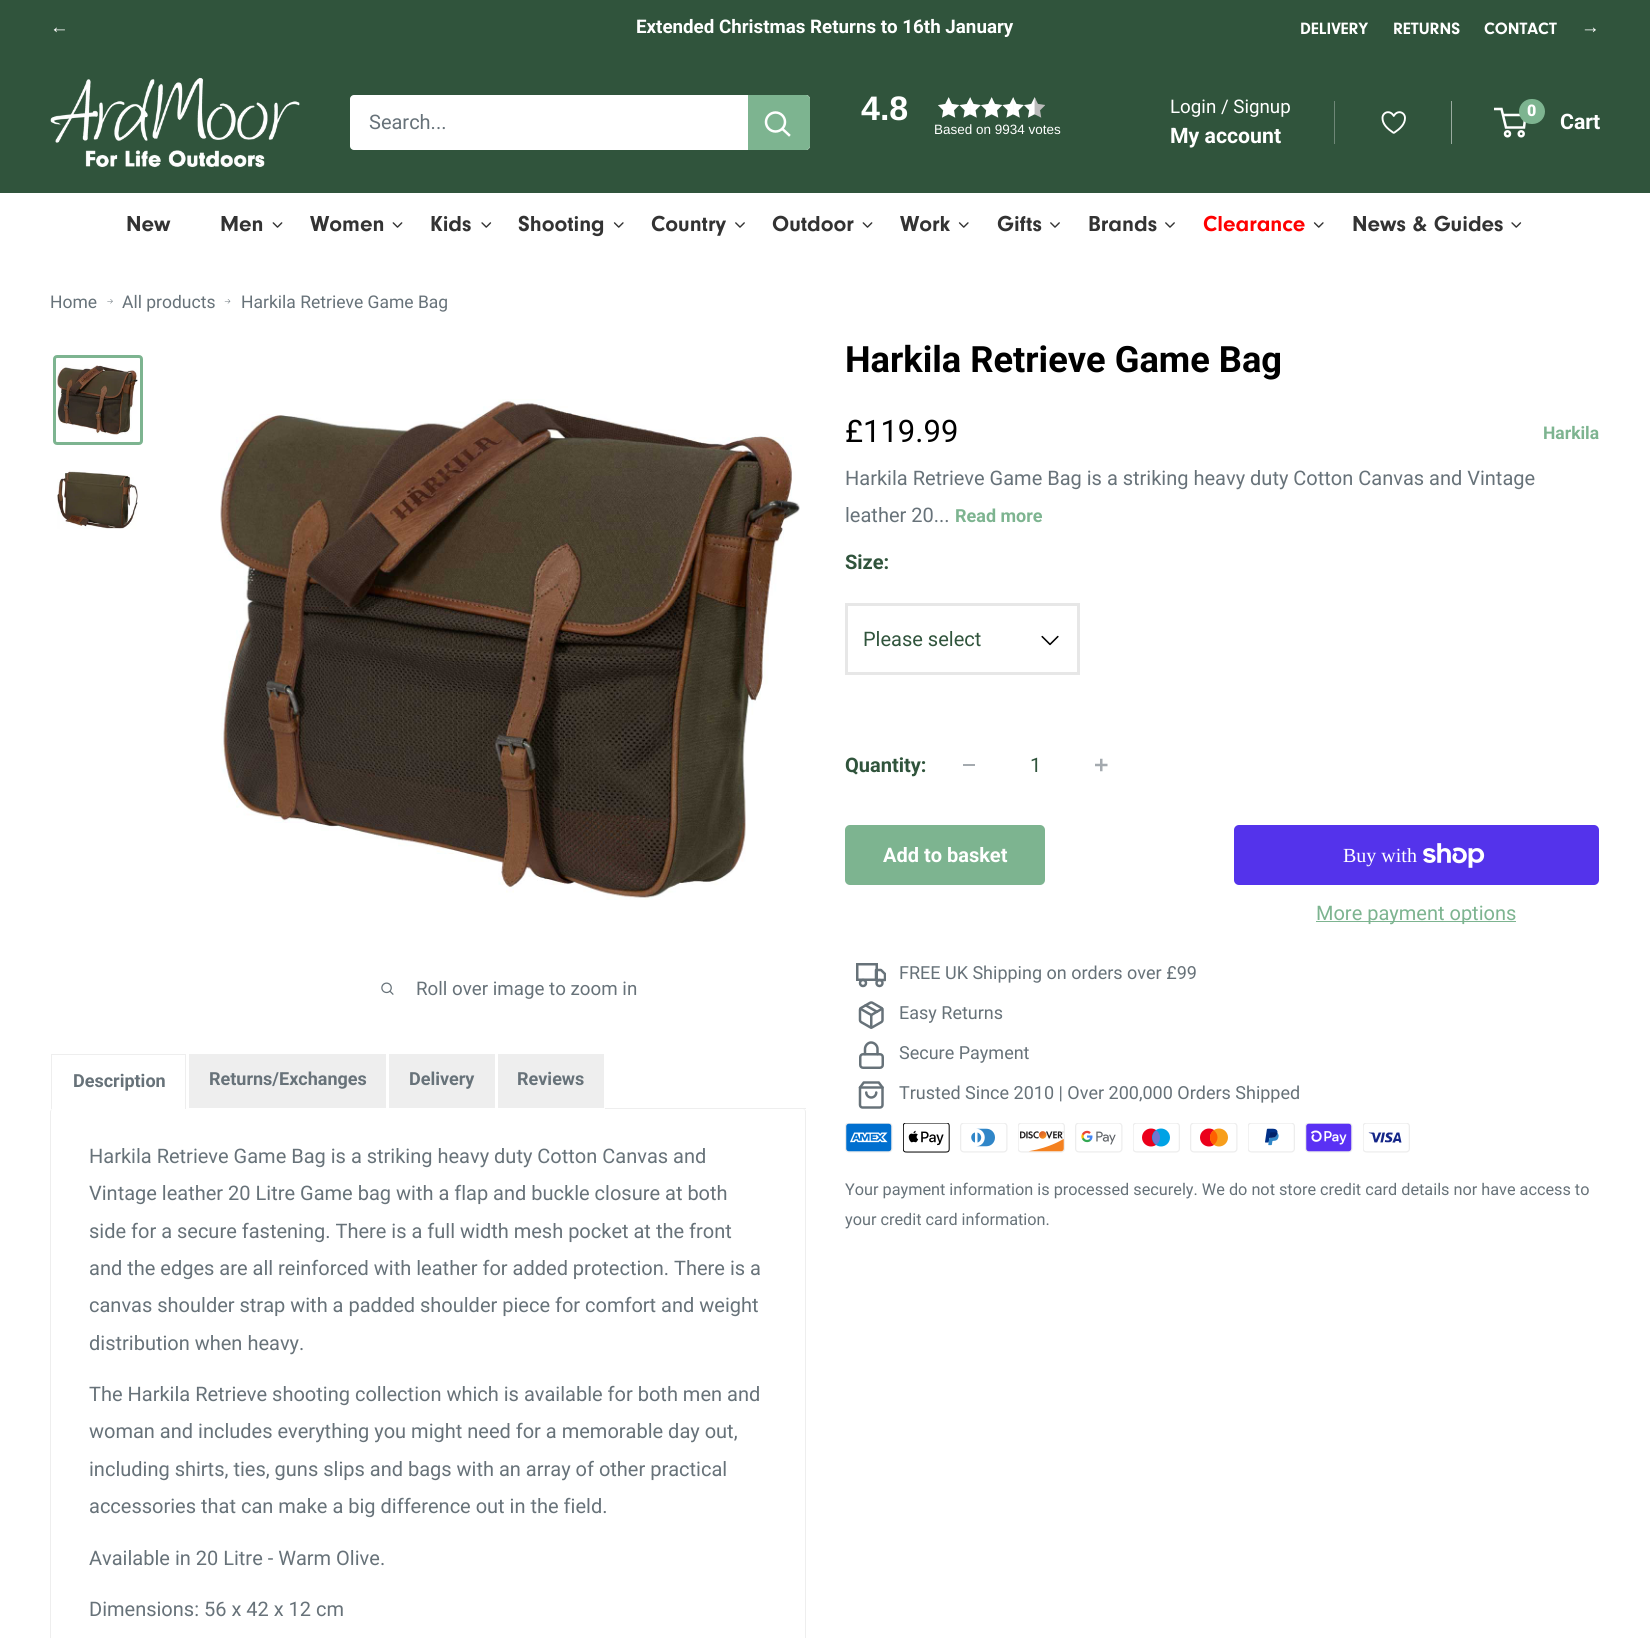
#include <cairo.h>
#include <math.h>
#include <stddef.h>

typedef struct { double x, y; const char *s; } line_t;
typedef struct { double x, y, w, h; unsigned color; } box_t;

static void ink(cairo_t *ctx, unsigned color) {
    cairo_set_source_rgb(ctx, (color >> 16) / 255.0, (color >> 8 & 255) / 255.0, (color & 255) / 255.0);
}

static void round_path(cairo_t *ctx, double x, double y, double w, double h, double r) {
    cairo_new_sub_path(ctx);
    cairo_arc(ctx, x + w - r, y + h - r, r, 0, M_PI / 2);
    cairo_arc(ctx, x + r, y + h - r, r, M_PI / 2, M_PI);
    cairo_arc(ctx, x + r, y + r, r, M_PI, 1.5 * M_PI);
    cairo_arc(ctx, x + w - r, y + r, r, 1.5 * M_PI, 2 * M_PI);
    cairo_close_path(ctx);
}

static void paste(cairo_t *ctx, const char *path, double x, double y, double w, double h) {
    cairo_surface_t *image = cairo_image_surface_create_from_png(path);
    cairo_save(ctx);
    cairo_set_source_surface(ctx, image, x, y);
    cairo_rectangle(ctx, x, y, w, h);
    cairo_fill(ctx);
    cairo_restore(ctx);
    cairo_surface_destroy(image);
}

int main(void) {
    cairo_surface_t *surface = cairo_image_surface_create(CAIRO_FORMAT_RGB24, 1650, 1638);
    cairo_t *ctx = cairo_create(surface);
    cairo_font_options_t *options = cairo_font_options_create();
    cairo_font_options_set_hint_metrics(options, CAIRO_HINT_METRICS_OFF);
    cairo_font_options_set_hint_style(options, CAIRO_HINT_STYLE_NONE);
    cairo_set_font_options(ctx, options);
    cairo_set_miter_limit(ctx, 4);
    ink(ctx, 0xFFFFFF);
    cairo_paint(ctx);
    ink(ctx, 0x30543C);
    cairo_rectangle(ctx, 0, 0, 1650, 193);
    cairo_fill(ctx);
    cairo_select_font_face(ctx, "Liberation Sans", CAIRO_FONT_SLANT_NORMAL, CAIRO_FONT_WEIGHT_BOLD);
    cairo_set_font_size(ctx, 18.75);
    ink(ctx, 0xFFFFFF);
    cairo_move_to(ctx, 50, 33);
    cairo_show_text(ctx, "←");
    cairo_select_font_face(ctx, "Roboto", CAIRO_FONT_SLANT_NORMAL, CAIRO_FONT_WEIGHT_BOLD);
    cairo_move_to(ctx, 636, 33);
    cairo_show_text(ctx, "Extended Christmas Returns to 16th January");
    cairo_select_font_face(ctx, "Liberation Sans", CAIRO_FONT_SLANT_NORMAL, CAIRO_FONT_WEIGHT_BOLD);
    cairo_move_to(ctx, 1581, 33);
    cairo_show_text(ctx, "→");
    cairo_select_font_face(ctx, "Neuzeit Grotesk", CAIRO_FONT_SLANT_NORMAL, CAIRO_FONT_WEIGHT_BOLD);
    cairo_set_font_size(ctx, 17);
    {
        static const line_t items[] = {
            {1300, 34, "DELIVERY"},
            {1393, 34, "RETURNS"},
            {1484, 34, "CONTACT"},
        };
        for (size_t i = 0; i < sizeof items / sizeof *items; i++) {
            cairo_move_to(ctx, items[i].x, items[i].y);
            cairo_show_text(ctx, items[i].s);
        }
    }
    paste(ctx, "media/1.png", 50, 77, 250, 91);
    round_path(ctx, 350, 95, 460, 55, 4);
    cairo_fill(ctx);
    cairo_select_font_face(ctx, "Roboto", CAIRO_FONT_SLANT_NORMAL, CAIRO_FONT_WEIGHT_NORMAL);
    cairo_set_font_size(ctx, 20);
    ink(ctx, 0x677279);
    cairo_move_to(ctx, 369, 129);
    cairo_show_text(ctx, "Search...");
    ink(ctx, 0x7DB490);
    cairo_new_path(ctx);
    cairo_move_to(ctx, 748, 95);
    cairo_line_to(ctx, 806, 95);
    cairo_curve_to(ctx, 808, 95, 810, 97, 810, 99);
    cairo_line_to(ctx, 810, 146);
    cairo_curve_to(ctx, 810, 148, 808, 150, 806, 150);
    cairo_line_to(ctx, 748, 150);
    cairo_close_path(ctx);
    cairo_fill(ctx);
    cairo_new_path(ctx);
    cairo_move_to(ctx, 789, 135);
    cairo_line_to(ctx, 782.5, 129);
    ink(ctx, 0xFFFFFF);
    cairo_set_line_width(ctx, 2.5);
    cairo_set_line_cap(ctx, CAIRO_LINE_CAP_SQUARE);
    cairo_stroke(ctx);
    cairo_arc(ctx, 775.5, 122, 9.5, 0, 2 * M_PI);
    cairo_set_line_cap(ctx, CAIRO_LINE_CAP_BUTT);
    cairo_stroke(ctx);
    cairo_select_font_face(ctx, "Liberation Sans", CAIRO_FONT_SLANT_NORMAL, CAIRO_FONT_WEIGHT_BOLD);
    cairo_set_font_size(ctx, 34);
    cairo_move_to(ctx, 861, 120);
    cairo_show_text(ctx, "4.8");
    paste(ctx, "media/2.png", 938, 97, 107, 21);
    cairo_select_font_face(ctx, "Liberation Sans", CAIRO_FONT_SLANT_NORMAL, CAIRO_FONT_WEIGHT_NORMAL);
    cairo_set_font_size(ctx, 13.5);
    cairo_move_to(ctx, 934, 134);
    cairo_show_text(ctx, "Based on 9934 votes");
    cairo_select_font_face(ctx, "Roboto", CAIRO_FONT_SLANT_NORMAL, CAIRO_FONT_WEIGHT_NORMAL);
    cairo_set_font_size(ctx, 18.75);
    cairo_move_to(ctx, 1170, 113);
    cairo_show_text(ctx, "Login / Signup");
    ink(ctx, 0x6E8777);
    cairo_rectangle(ctx, 1334, 101, 1, 43);
    cairo_fill(ctx);
    cairo_select_font_face(ctx, "Roboto", CAIRO_FONT_SLANT_NORMAL, CAIRO_FONT_WEIGHT_BOLD);
    cairo_set_font_size(ctx, 21.25);
    ink(ctx, 0xFFFFFF);
    cairo_move_to(ctx, 1170, 143);
    cairo_show_text(ctx, "My account");
    paste(ctx, "media/3.png", 1381, 111, 25, 23);
    ink(ctx, 0x9AABA0);
    cairo_rectangle(ctx, 1451, 101, 1, 43);
    cairo_fill(ctx);
    cairo_arc(ctx, 1507.5, 133.8, 2.5, 0, 2 * M_PI);
    ink(ctx, 0xFFFFFF);
    cairo_stroke(ctx);
    cairo_arc(ctx, 1521.2, 133.8, 2.5, 0, 2 * M_PI);
    cairo_stroke(ctx);
    cairo_new_path(ctx);
    cairo_move_to(ctx, 1503, 115);
    cairo_line_to(ctx, 1525.5, 115);
    cairo_line_to(ctx, 1524, 127.5);
    cairo_line_to(ctx, 1506, 127.5);
    cairo_line_to(ctx, 1501.5, 109);
    cairo_line_to(ctx, 1494, 109);
    cairo_stroke(ctx);
    ink(ctx, 0x7DB490);
    round_path(ctx, 1519, 99, 26, 25, 12.5);
    cairo_fill(ctx);
    cairo_select_font_face(ctx, "Roboto Black", CAIRO_FONT_SLANT_NORMAL, CAIRO_FONT_WEIGHT_NORMAL);
    cairo_set_font_size(ctx, 16);
    ink(ctx, 0xFFFFFF);
    cairo_move_to(ctx, 1527, 116);
    cairo_show_text(ctx, "0");
    cairo_select_font_face(ctx, "Roboto", CAIRO_FONT_SLANT_NORMAL, CAIRO_FONT_WEIGHT_BOLD);
    cairo_set_font_size(ctx, 21.25);
    cairo_move_to(ctx, 1560, 129);
    cairo_show_text(ctx, "Cart");
    cairo_select_font_face(ctx, "Neuzeit Grotesk", CAIRO_FONT_SLANT_NORMAL, CAIRO_FONT_WEIGHT_BOLD);
    cairo_set_font_size(ctx, 22.5);
    ink(ctx, 0x333333);
    cairo_move_to(ctx, 126, 231);
    cairo_show_text(ctx, "New");
    cairo_move_to(ctx, 220, 231);
    cairo_show_text(ctx, "Men");
    paste(ctx, "media/4.png", 272, 222, 11, 6);
    cairo_move_to(ctx, 310, 231);
    cairo_show_text(ctx, "Women");
    paste(ctx, "media/4.png", 392, 222, 11, 6);
    cairo_move_to(ctx, 430, 231);
    cairo_show_text(ctx, "Kids");
    paste(ctx, "media/5.png", 481, 222, 11, 6);
    cairo_move_to(ctx, 518, 231);
    cairo_show_text(ctx, "Shooting");
    paste(ctx, "media/6.png", 613, 222, 11, 6);
    cairo_move_to(ctx, 651, 231);
    cairo_show_text(ctx, "Country");
    paste(ctx, "media/7.png", 735, 222, 10, 6);
    cairo_move_to(ctx, 772, 231);
    cairo_show_text(ctx, "Outdoor");
    paste(ctx, "media/4.png", 862, 222, 11, 6);
    cairo_move_to(ctx, 900, 231);
    cairo_show_text(ctx, "Work");
    paste(ctx, "media/6.png", 958, 222, 11, 6);
    cairo_move_to(ctx, 997, 231);
    cairo_show_text(ctx, "Gifts");
    paste(ctx, "media/7.png", 1050, 222, 10, 6);
    cairo_move_to(ctx, 1088, 231);
    cairo_show_text(ctx, "Brands");
    paste(ctx, "media/7.png", 1165, 222, 10, 6);
    ink(ctx, 0xFF0000);
    cairo_move_to(ctx, 1203, 231);
    cairo_show_text(ctx, "Clearance");
    paste(ctx, "media/6.png", 1313, 222, 11, 6);
    ink(ctx, 0x333333);
    cairo_move_to(ctx, 1352, 231);
    cairo_show_text(ctx, "News & Guides");
    paste(ctx, "media/5.png", 1511, 222, 11, 6);
    cairo_select_font_face(ctx, "Roboto", CAIRO_FONT_SLANT_NORMAL, CAIRO_FONT_WEIGHT_NORMAL);
    cairo_set_font_size(ctx, 17.5);
    ink(ctx, 0x677279);
    cairo_move_to(ctx, 50, 308);
    cairo_show_text(ctx, "Home");
    paste(ctx, "media/8.png", 107, 299, 6, 5);
    cairo_move_to(ctx, 122, 308);
    cairo_show_text(ctx, "All products");
    paste(ctx, "media/9.png", 224, 299, 7, 5);
    cairo_move_to(ctx, 241, 308);
    cairo_show_text(ctx, "Harkila Retrieve Game Bag");
    round_path(ctx, 54.5, 356.5, 87, 87, 2.5);
    ink(ctx, 0x7DB490);
    cairo_set_line_width(ctx, 3);
    cairo_stroke(ctx);
    paste(ctx, "media/10.png", 57, 365, 81, 70);
    paste(ctx, "media/11.png", 57, 470, 81, 59);
    paste(ctx, "media/12.png", 220, 399, 580, 501);
    paste(ctx, "media/13.png", 381, 982, 13, 13);
    cairo_set_font_size(ctx, 18.75);
    ink(ctx, 0x677279);
    cairo_move_to(ctx, 416, 995);
    cairo_show_text(ctx, "Roll over image to zoom in");
    cairo_select_font_face(ctx, "Roboto", CAIRO_FONT_SLANT_NORMAL, CAIRO_FONT_WEIGHT_BOLD);
    cairo_set_font_size(ctx, 36.25);
    ink(ctx, 0x000000);
    cairo_move_to(ctx, 845, 372);
    cairo_show_text(ctx, "Harkila Retrieve Game Bag");
    cairo_select_font_face(ctx, "Roboto", CAIRO_FONT_SLANT_NORMAL, CAIRO_FONT_WEIGHT_NORMAL);
    cairo_set_font_size(ctx, 31);
    cairo_move_to(ctx, 845, 442);
    cairo_show_text(ctx, "£119.99");
    cairo_select_font_face(ctx, "Roboto", CAIRO_FONT_SLANT_NORMAL, CAIRO_FONT_WEIGHT_BOLD);
    cairo_set_font_size(ctx, 17.5);
    ink(ctx, 0x7DB490);
    cairo_move_to(ctx, 1543, 439);
    cairo_show_text(ctx, "Harkila");
    cairo_select_font_face(ctx, "Roboto", CAIRO_FONT_SLANT_NORMAL, CAIRO_FONT_WEIGHT_NORMAL);
    cairo_set_font_size(ctx, 20);
    ink(ctx, 0x677279);
    cairo_move_to(ctx, 845, 485);
    cairo_show_text(ctx, "Harkila Retrieve Game Bag is a striking heavy duty Cotton Canvas and Vintage");
    cairo_move_to(ctx, 845, 522);
    cairo_show_text(ctx, "leather 20...");
    cairo_select_font_face(ctx, "Roboto", CAIRO_FONT_SLANT_NORMAL, CAIRO_FONT_WEIGHT_BOLD);
    cairo_set_font_size(ctx, 18);
    ink(ctx, 0x7DB490);
    cairo_move_to(ctx, 955, 522);
    cairo_show_text(ctx, "Read more");
    cairo_set_font_size(ctx, 20);
    ink(ctx, 0x30543C);
    cairo_move_to(ctx, 845, 569);
    cairo_show_text(ctx, "Size:");
    cairo_rectangle(ctx, 846.5, 604.5, 232, 69);
    ink(ctx, 0xE7E7E7);
    cairo_stroke(ctx);
    cairo_select_font_face(ctx, "Roboto", CAIRO_FONT_SLANT_NORMAL, CAIRO_FONT_WEIGHT_NORMAL);
    ink(ctx, 0x30543C);
    cairo_move_to(ctx, 863, 646);
    cairo_show_text(ctx, "Please select");
    paste(ctx, "media/14.png", 1041, 635, 18, 11);
    cairo_select_font_face(ctx, "Roboto", CAIRO_FONT_SLANT_NORMAL, CAIRO_FONT_WEIGHT_BOLD);
    cairo_move_to(ctx, 845, 772);
    cairo_show_text(ctx, "Quantity:");
    ink(ctx, 0xA4AAAF);
    cairo_rectangle(ctx, 963, 764, 12, 2);
    cairo_fill(ctx);
    cairo_select_font_face(ctx, "Roboto", CAIRO_FONT_SLANT_NORMAL, CAIRO_FONT_WEIGHT_NORMAL);
    ink(ctx, 0x30543C);
    cairo_move_to(ctx, 1030, 772);
    cairo_show_text(ctx, "1");
    paste(ctx, "media/15.png", 1095, 758, 13, 14);
    ink(ctx, 0x7DB490);
    round_path(ctx, 845, 825, 200, 60, 5);
    cairo_fill(ctx);
    cairo_select_font_face(ctx, "Roboto", CAIRO_FONT_SLANT_NORMAL, CAIRO_FONT_WEIGHT_BOLD);
    ink(ctx, 0xFFFFFF);
    cairo_move_to(ctx, 883, 862);
    cairo_show_text(ctx, "Add to basket");
    ink(ctx, 0x5433EB);
    round_path(ctx, 1234, 825, 365, 60, 5);
    cairo_fill(ctx);
    cairo_select_font_face(ctx, "Liberation Serif", CAIRO_FONT_SLANT_NORMAL, CAIRO_FONT_WEIGHT_NORMAL);
    ink(ctx, 0xFFFFFF);
    cairo_move_to(ctx, 1343, 862);
    cairo_show_text(ctx, "Buy with");
    paste(ctx, "media/16.png", 1423, 843, 62, 25);
    ink(ctx, 0x7DB490);
    cairo_rectangle(ctx, 1316, 921, 200, 1);
    cairo_fill(ctx);
    cairo_select_font_face(ctx, "Roboto", CAIRO_FONT_SLANT_NORMAL, CAIRO_FONT_WEIGHT_NORMAL);
    cairo_move_to(ctx, 1316, 920);
    cairo_show_text(ctx, "More payment options");
    cairo_rectangle(ctx, 857.25, 964.25, 19.5, 15.5);
    ink(ctx, 0x677279);
    cairo_set_line_width(ctx, 2.5);
    cairo_stroke(ctx);
    cairo_save(ctx);
    cairo_rectangle(ctx, 856, 960, 30, 30);
    cairo_clip(ctx);
    cairo_new_path(ctx);
    cairo_move_to(ctx, 876, 970);
    cairo_line_to(ctx, 881, 970);
    cairo_line_to(ctx, 885, 974);
    cairo_line_to(ctx, 885, 980);
    cairo_line_to(ctx, 876, 980);
    cairo_close_path(ctx);
    cairo_set_line_cap(ctx, CAIRO_LINE_CAP_ROUND);
    cairo_set_line_join(ctx, CAIRO_LINE_JOIN_ROUND);
    cairo_stroke(ctx);
    cairo_restore(ctx);
    cairo_arc(ctx, 863, 983, 3, 0, 2 * M_PI);
    cairo_stroke(ctx);
    cairo_arc(ctx, 879.5, 983, 3, 0, 2 * M_PI);
    cairo_stroke(ctx);
    cairo_set_font_size(ctx, 18);
    cairo_move_to(ctx, 899, 979);
    cairo_show_text(ctx, "FREE UK Shipping on orders over £99");
    paste(ctx, "media/17.png", 858, 1001, 26, 28);
    cairo_move_to(ctx, 899, 1019);
    cairo_show_text(ctx, "Easy Returns");
    round_path(ctx, 860.25, 1054.25, 22.5, 13.5, 2.75);
    cairo_stroke(ctx);
    cairo_new_path(ctx);
    cairo_move_to(ctx, 865, 1054);
    cairo_line_to(ctx, 865, 1049);
    cairo_curve_to(ctx, 865, 1045.5, 868, 1042.5, 871, 1042.5);
    cairo_curve_to(ctx, 874.5, 1042.5, 877.5, 1045.5, 877.5, 1049);
    cairo_line_to(ctx, 877.5, 1054);
    cairo_set_line_cap(ctx, CAIRO_LINE_CAP_ROUND);
    cairo_set_line_join(ctx, CAIRO_LINE_JOIN_ROUND);
    cairo_stroke(ctx);
    cairo_move_to(ctx, 899, 1059);
    cairo_show_text(ctx, "Secure Payment");
    paste(ctx, "media/18.png", 858, 1081, 26, 28);
    cairo_move_to(ctx, 899, 1099);
    cairo_show_text(ctx, "Trusted Since 2010 | Over 200,000 Orders Shipped");
    paste(ctx, "media/19.png", 845, 1123, 48, 30);
    paste(ctx, "media/20.png", 903, 1123, 47, 30);
    paste(ctx, "media/21.png", 960, 1123, 48, 30);
    paste(ctx, "media/22.png", 1018, 1123, 47, 30);
    paste(ctx, "media/23.png", 1075, 1123, 48, 30);
    paste(ctx, "media/24.png", 1133, 1123, 47, 30);
    paste(ctx, "media/25.png", 1190, 1123, 48, 30);
    paste(ctx, "media/26.png", 1248, 1123, 47, 30);
    paste(ctx, "media/27.png", 1305, 1123, 48, 30);
    paste(ctx, "media/28.png", 1363, 1123, 47, 30);
    cairo_set_font_size(ctx, 16.25);
    cairo_move_to(ctx, 845, 1195);
    cairo_show_text(ctx, "Your payment information is processed securely. We do not store credit card details nor have access to");
    cairo_move_to(ctx, 845, 1225);
    cairo_show_text(ctx, "your credit card information.");
    {
        static const box_t items[] = {
            {51, 1054, 135, 1, 0xEEEEEE},
            {185, 1054, 1, 55, 0xEEEEEE},
            {51, 1054, 1, 55, 0xEEEEEE},
        };
        for (size_t i = 0; i < sizeof items / sizeof *items; i++) {
            ink(ctx, items[i].color);
            cairo_rectangle(ctx, items[i].x, items[i].y, items[i].w, items[i].h);
            cairo_fill(ctx);
        }
    }
    cairo_select_font_face(ctx, "Roboto", CAIRO_FONT_SLANT_NORMAL, CAIRO_FONT_WEIGHT_BOLD);
    cairo_set_font_size(ctx, 18);
    ink(ctx, 0x677279);
    cairo_move_to(ctx, 73, 1087);
    cairo_show_text(ctx, "Description");
    ink(ctx, 0xEEEEEE);
    cairo_rectangle(ctx, 189, 1054, 197, 54);
    cairo_fill(ctx);
    ink(ctx, 0x677279);
    cairo_move_to(ctx, 209, 1085);
    cairo_show_text(ctx, "Returns/Exchanges");
    ink(ctx, 0xEEEEEE);
    cairo_rectangle(ctx, 389, 1054, 106, 54);
    cairo_fill(ctx);
    ink(ctx, 0x677279);
    cairo_move_to(ctx, 409, 1085);
    cairo_show_text(ctx, "Delivery");
    ink(ctx, 0xEEEEEE);
    cairo_rectangle(ctx, 498, 1054, 106, 54);
    cairo_fill(ctx);
    ink(ctx, 0x677279);
    cairo_move_to(ctx, 517, 1085);
    cairo_show_text(ctx, "Reviews");
    ink(ctx, 0xEEEEEE);
    cairo_rectangle(ctx, 605, 1108, 201, 1);
    cairo_fill(ctx);
    cairo_set_fill_rule(ctx, CAIRO_FILL_RULE_EVEN_ODD);
    cairo_new_path(ctx);
    cairo_move_to(ctx, 54, 1109);
    cairo_line_to(ctx, 802, 1109);
    cairo_curve_to(ctx, 805, 1109, 806, 1110, 806, 1112);
    cairo_line_to(ctx, 806, 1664);
    cairo_curve_to(ctx, 806, 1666, 805, 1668, 802, 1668);
    cairo_line_to(ctx, 54, 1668);
    cairo_curve_to(ctx, 52, 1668, 50, 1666, 50, 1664);
    cairo_line_to(ctx, 50, 1112);
    cairo_curve_to(ctx, 50, 1110, 52, 1109, 54, 1109);
    cairo_close_path(ctx);
    cairo_move_to(ctx, 54, 1109);
    cairo_line_to(ctx, 802, 1109);
    cairo_curve_to(ctx, 804, 1109, 805, 1110, 805, 1112);
    cairo_line_to(ctx, 805, 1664);
    cairo_curve_to(ctx, 805, 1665, 804, 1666, 802, 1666);
    cairo_line_to(ctx, 54, 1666);
    cairo_curve_to(ctx, 52, 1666, 51, 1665, 51, 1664);
    cairo_line_to(ctx, 51, 1112);
    cairo_curve_to(ctx, 51, 1110, 52, 1109, 54, 1109);
    cairo_close_path(ctx);
    cairo_fill(ctx);
    cairo_select_font_face(ctx, "Roboto", CAIRO_FONT_SLANT_NORMAL, CAIRO_FONT_WEIGHT_NORMAL);
    cairo_set_font_size(ctx, 20);
    ink(ctx, 0x677279);
    {
        static const line_t items[] = {
            {89, 1163, "Harkila Retrieve Game Bag is a striking heavy duty Cotton Canvas and"},
            {89, 1200, "Vintage leather 20 Litre Game bag with a flap and buckle closure at both"},
            {89, 1238, "side for a secure fastening. There is a full width mesh pocket at the front"},
            {89, 1275, "and the edges are all reinforced with leather for added protection. There is a"},
            {89, 1312, "canvas shoulder strap with a padded shoulder piece for comfort and weight"},
            {89, 1350, "distribution when heavy."},
            {89, 1401, "The Harkila Retrieve shooting collection which is available for both men and"},
            {89, 1438, "woman and includes everything you might need for a memorable day out,"},
            {89, 1476, "including shirts, ties, guns slips and bags with an array of other practical"},
            {89, 1513, "accessories that can make a big difference out in the field."},
            {89, 1565, "Available in 20 Litre - Warm Olive."},
            {89, 1616, "Dimensions: 56 x 42 x 12 cm"},
        };
        for (size_t i = 0; i < sizeof items / sizeof *items; i++) {
            cairo_move_to(ctx, items[i].x, items[i].y);
            cairo_show_text(ctx, items[i].s);
        }
    }
    cairo_surface_write_to_png(surface, "image.png");
    cairo_font_options_destroy(options);
    cairo_destroy(ctx);
    cairo_surface_destroy(surface);
    return 0;
}
